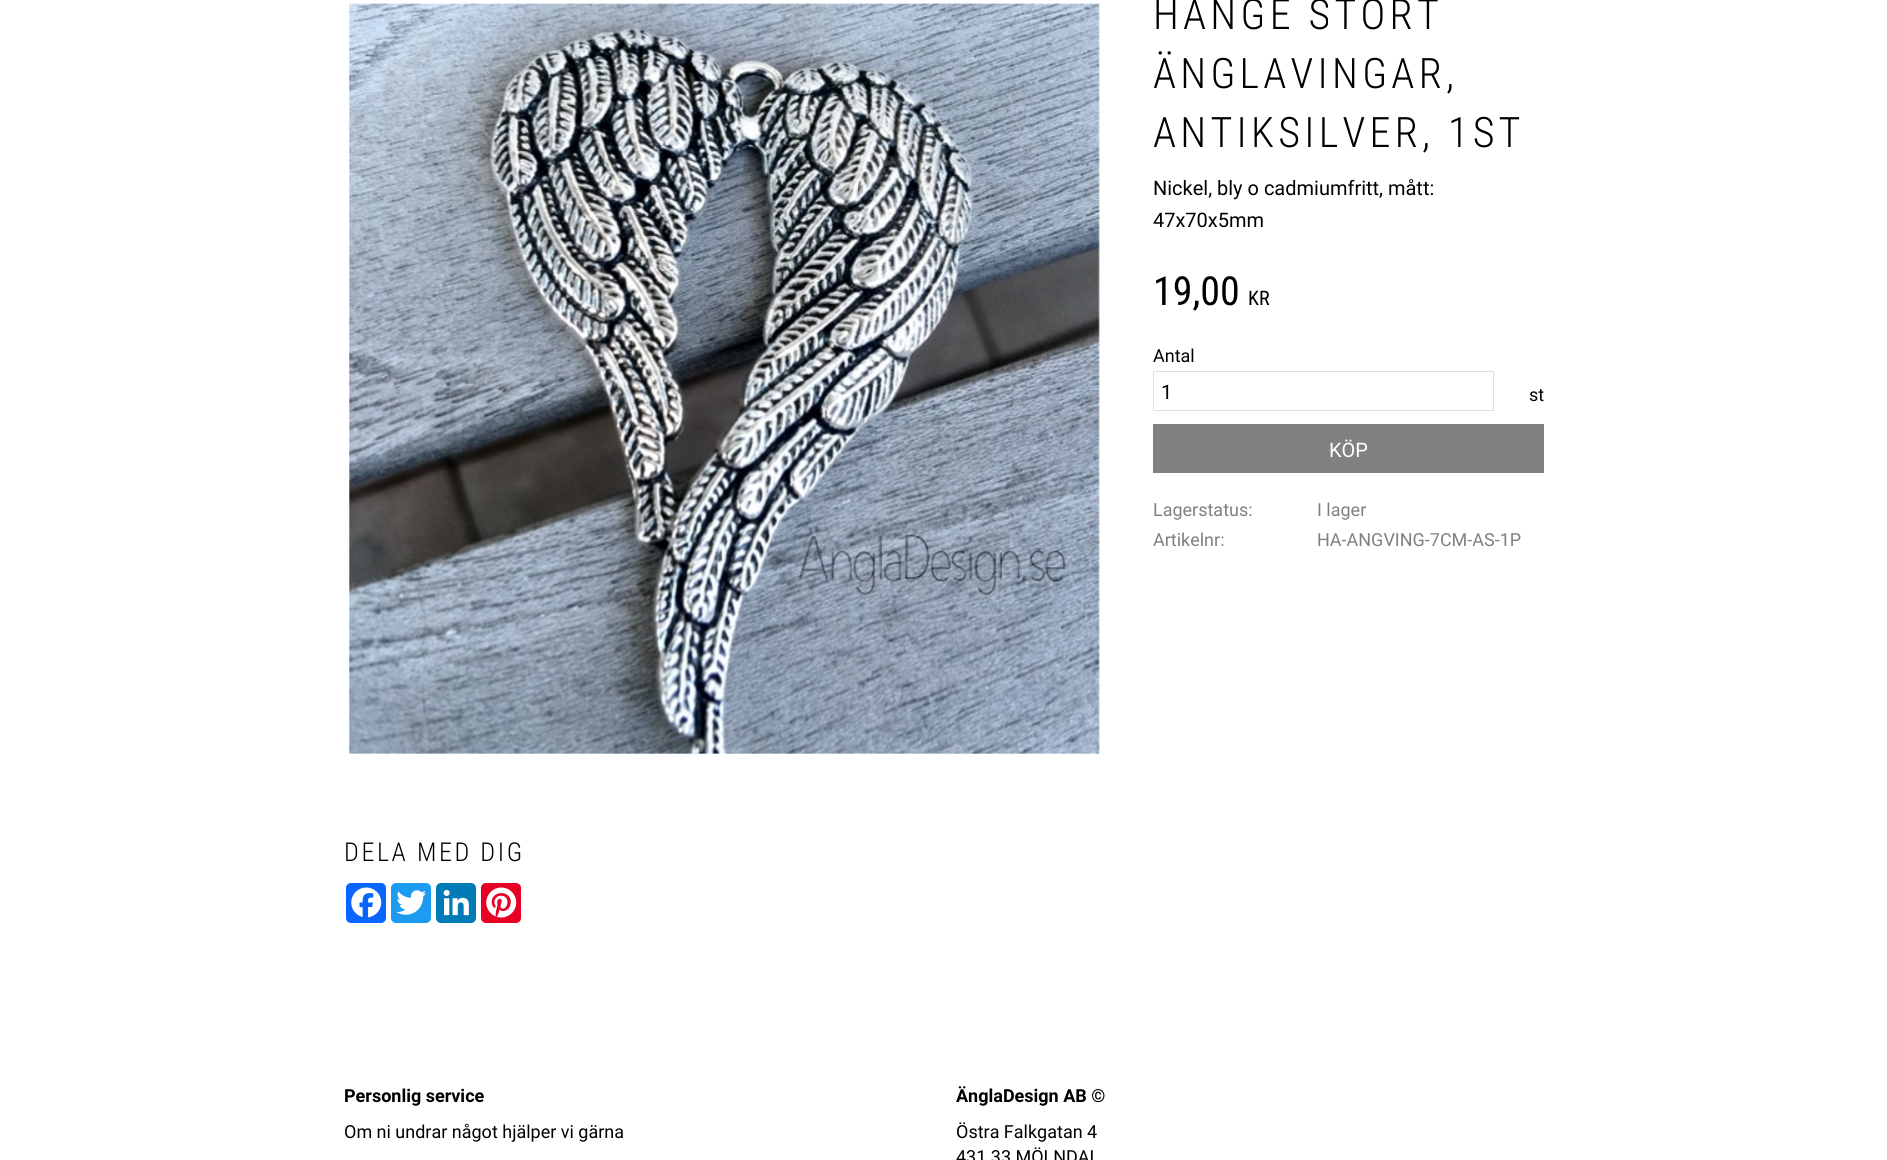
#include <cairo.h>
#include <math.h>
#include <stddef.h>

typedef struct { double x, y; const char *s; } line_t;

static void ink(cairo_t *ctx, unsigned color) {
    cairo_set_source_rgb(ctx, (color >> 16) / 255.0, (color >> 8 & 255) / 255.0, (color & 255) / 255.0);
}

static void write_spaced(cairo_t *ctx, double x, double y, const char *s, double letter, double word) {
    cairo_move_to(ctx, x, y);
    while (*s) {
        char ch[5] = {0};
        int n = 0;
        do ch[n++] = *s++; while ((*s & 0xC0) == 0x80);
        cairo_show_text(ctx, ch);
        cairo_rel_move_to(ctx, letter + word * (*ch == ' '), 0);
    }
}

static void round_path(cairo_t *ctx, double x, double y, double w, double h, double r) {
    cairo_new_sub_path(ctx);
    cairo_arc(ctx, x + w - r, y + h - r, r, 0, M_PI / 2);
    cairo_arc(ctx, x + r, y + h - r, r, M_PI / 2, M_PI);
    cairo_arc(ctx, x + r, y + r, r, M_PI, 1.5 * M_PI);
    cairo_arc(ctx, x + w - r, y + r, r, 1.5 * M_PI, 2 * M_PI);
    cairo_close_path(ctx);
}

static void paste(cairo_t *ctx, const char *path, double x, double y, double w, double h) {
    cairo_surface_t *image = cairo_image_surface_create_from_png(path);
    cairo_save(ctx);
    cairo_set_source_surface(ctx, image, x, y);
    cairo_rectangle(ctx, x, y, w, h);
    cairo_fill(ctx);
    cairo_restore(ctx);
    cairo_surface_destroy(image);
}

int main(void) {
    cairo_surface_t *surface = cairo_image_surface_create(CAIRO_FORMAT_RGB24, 1887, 1160);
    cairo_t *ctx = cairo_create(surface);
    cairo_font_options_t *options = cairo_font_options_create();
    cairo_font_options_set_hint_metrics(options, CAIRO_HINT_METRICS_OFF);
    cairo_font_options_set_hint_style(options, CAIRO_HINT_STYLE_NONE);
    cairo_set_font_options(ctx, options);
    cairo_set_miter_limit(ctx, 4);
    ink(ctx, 0xFFFFFF);
    cairo_paint(ctx);
    cairo_select_font_face(ctx, "Roboto Condensed Light", CAIRO_FONT_SLANT_NORMAL, CAIRO_FONT_WEIGHT_NORMAL);
    cairo_set_font_size(ctx, 42);
    ink(ctx, 0x000000);
    {
        static const line_t items[] = {
            {1153, 29, "HÄNGE STORT"},
            {1153, 88, "ÄNGLAVINGAR,"},
            {1153, 147, "ANTIKSILVER, 1ST"},
        };
        for (size_t i = 0; i < sizeof items / sizeof *items; i++) {
            write_spaced(ctx, items[i].x, items[i].y, items[i].s, 4.25, 0);
        }
    }
    cairo_select_font_face(ctx, "Roboto", CAIRO_FONT_SLANT_NORMAL, CAIRO_FONT_WEIGHT_NORMAL);
    cairo_set_font_size(ctx, 20);
    cairo_move_to(ctx, 1153, 195);
    cairo_show_text(ctx, "Nickel, bly o cadmiumfritt, mått:");
    cairo_move_to(ctx, 1153, 227);
    cairo_show_text(ctx, "47x70x5mm");
    paste(ctx, "media/1.png", 349, 3, 751, 751);
    cairo_select_font_face(ctx, "Roboto Condensed", CAIRO_FONT_SLANT_NORMAL, CAIRO_FONT_WEIGHT_NORMAL);
    cairo_set_font_size(ctx, 40);
    cairo_move_to(ctx, 1153, 305);
    cairo_show_text(ctx, "19,00");
    cairo_set_font_size(ctx, 20);
    cairo_move_to(ctx, 1248, 305);
    cairo_show_text(ctx, "KR");
    cairo_select_font_face(ctx, "Roboto", CAIRO_FONT_SLANT_NORMAL, CAIRO_FONT_WEIGHT_NORMAL);
    cairo_set_font_size(ctx, 18);
    cairo_move_to(ctx, 1153, 362);
    cairo_show_text(ctx, "Antal");
    cairo_rectangle(ctx, 1153.5, 371.5, 340, 39);
    ink(ctx, 0xDEDEDE);
    cairo_set_line_width(ctx, 1);
    cairo_stroke(ctx);
    cairo_set_font_size(ctx, 20);
    ink(ctx, 0x000000);
    cairo_move_to(ctx, 1161, 399);
    cairo_show_text(ctx, "1");
    cairo_set_font_size(ctx, 18);
    cairo_move_to(ctx, 1529, 401);
    cairo_show_text(ctx, "st");
    ink(ctx, 0x818181);
    cairo_rectangle(ctx, 1153, 424, 391, 49);
    cairo_fill(ctx);
    cairo_set_font_size(ctx, 20);
    ink(ctx, 0xFFFFFF);
    cairo_move_to(ctx, 1329, 457);
    cairo_show_text(ctx, "KÖP");
    cairo_set_font_size(ctx, 18);
    ink(ctx, 0x808080);
    {
        static const line_t items[] = {
            {1153, 516, "Lagerstatus:"},
            {1317, 516, "I lager"},
            {1153, 546, "Artikelnr:"},
            {1317, 546, "HA-ANGVING-7CM-AS-1P"},
        };
        for (size_t i = 0; i < sizeof items / sizeof *items; i++) {
            cairo_move_to(ctx, items[i].x, items[i].y);
            cairo_show_text(ctx, items[i].s);
        }
    }
    cairo_select_font_face(ctx, "Roboto Condensed Light", CAIRO_FONT_SLANT_NORMAL, CAIRO_FONT_WEIGHT_NORMAL);
    cairo_set_font_size(ctx, 26);
    ink(ctx, 0x000000);
    write_spaced(ctx, 344, 861, "DELA MED DIG", 2.6, 0);
    ink(ctx, 0x0866FF);
    round_path(ctx, 346, 883, 40, 40, 5);
    cairo_fill(ctx);
    paste(ctx, "media/2.png", 351, 887, 31, 31);
    ink(ctx, 0x1D9BF0);
    round_path(ctx, 391, 883, 40, 40, 5);
    cairo_fill(ctx);
    paste(ctx, "media/3.png", 396, 890, 31, 25);
    ink(ctx, 0x007BB5);
    round_path(ctx, 436, 883, 40, 40, 5);
    cairo_fill(ctx);
    paste(ctx, "media/4.png", 443, 889, 26, 27);
    ink(ctx, 0xE60023);
    round_path(ctx, 481, 883, 40, 40, 5);
    cairo_fill(ctx);
    paste(ctx, "media/5.png", 486, 887, 31, 31);
    cairo_select_font_face(ctx, "Roboto", CAIRO_FONT_SLANT_NORMAL, CAIRO_FONT_WEIGHT_BOLD);
    cairo_set_font_size(ctx, 18);
    ink(ctx, 0x000000);
    cairo_move_to(ctx, 344, 1102);
    cairo_show_text(ctx, "Personlig service");
    cairo_select_font_face(ctx, "Roboto", CAIRO_FONT_SLANT_NORMAL, CAIRO_FONT_WEIGHT_NORMAL);
    cairo_move_to(ctx, 344, 1138);
    cairo_show_text(ctx, "Om ni undrar något hjälper vi gärna");
    cairo_select_font_face(ctx, "Roboto", CAIRO_FONT_SLANT_NORMAL, CAIRO_FONT_WEIGHT_BOLD);
    cairo_move_to(ctx, 956, 1102);
    cairo_show_text(ctx, "ÄnglaDesign AB ©");
    cairo_select_font_face(ctx, "Roboto", CAIRO_FONT_SLANT_NORMAL, CAIRO_FONT_WEIGHT_NORMAL);
    cairo_move_to(ctx, 956, 1138);
    cairo_show_text(ctx, "Östra Falkgatan 4");
    cairo_move_to(ctx, 956, 1163);
    cairo_show_text(ctx, "431 33 MÖLNDAL");
    cairo_surface_write_to_png(surface, "image.png");
    cairo_font_options_destroy(options);
    cairo_destroy(ctx);
    cairo_surface_destroy(surface);
    return 0;
}
